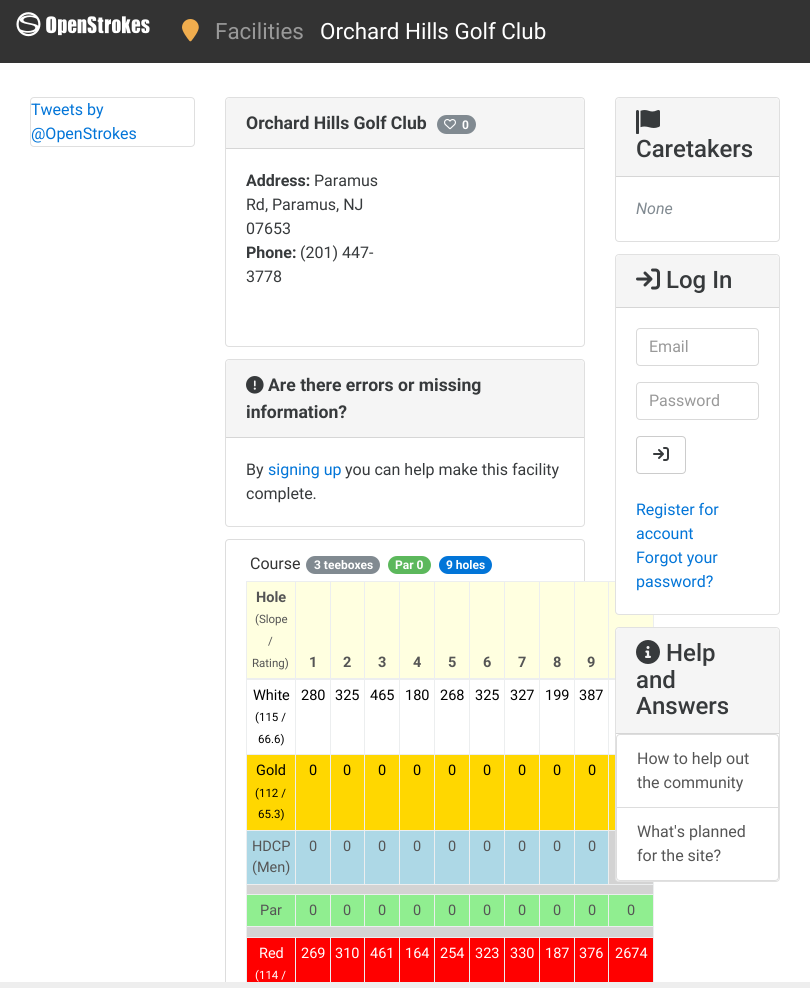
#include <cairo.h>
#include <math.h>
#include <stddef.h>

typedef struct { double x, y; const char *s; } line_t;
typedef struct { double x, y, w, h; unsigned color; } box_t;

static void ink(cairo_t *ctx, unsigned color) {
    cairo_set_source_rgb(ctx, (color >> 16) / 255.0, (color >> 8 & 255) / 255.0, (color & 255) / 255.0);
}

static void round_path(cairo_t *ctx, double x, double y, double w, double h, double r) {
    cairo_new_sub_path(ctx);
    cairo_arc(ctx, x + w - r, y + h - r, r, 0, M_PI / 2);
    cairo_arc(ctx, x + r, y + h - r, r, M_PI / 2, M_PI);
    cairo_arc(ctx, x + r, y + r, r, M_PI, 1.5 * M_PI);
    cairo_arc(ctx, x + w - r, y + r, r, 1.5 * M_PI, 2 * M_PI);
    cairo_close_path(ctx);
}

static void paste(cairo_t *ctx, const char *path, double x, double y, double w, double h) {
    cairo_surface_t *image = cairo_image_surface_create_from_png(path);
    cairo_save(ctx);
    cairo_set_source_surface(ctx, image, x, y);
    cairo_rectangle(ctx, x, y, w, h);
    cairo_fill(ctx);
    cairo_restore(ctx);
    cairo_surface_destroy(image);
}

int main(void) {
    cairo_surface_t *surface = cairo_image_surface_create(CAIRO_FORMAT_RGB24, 810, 988);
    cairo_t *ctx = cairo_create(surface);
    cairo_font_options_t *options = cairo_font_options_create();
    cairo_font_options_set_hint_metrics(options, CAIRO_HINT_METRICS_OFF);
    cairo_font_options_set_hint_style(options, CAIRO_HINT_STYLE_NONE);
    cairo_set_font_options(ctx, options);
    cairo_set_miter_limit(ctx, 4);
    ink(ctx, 0xFFFFFF);
    cairo_paint(ctx);
    ink(ctx, 0x333333);
    cairo_rectangle(ctx, 0, 0, 810, 63);
    cairo_fill(ctx);
    paste(ctx, "media/1.png", 16, 12, 134, 25);
    paste(ctx, "media/2.png", 182, 19, 17, 23);
    cairo_select_font_face(ctx, "Roboto", CAIRO_FONT_SLANT_NORMAL, CAIRO_FONT_WEIGHT_NORMAL);
    cairo_set_font_size(ctx, 22.4);
    ink(ctx, 0x999999);
    cairo_move_to(ctx, 215, 39);
    cairo_show_text(ctx, "Facilities");
    ink(ctx, 0xFFFFFF);
    cairo_move_to(ctx, 320, 39);
    cairo_show_text(ctx, "Orchard Hills Golf Club");
    round_path(ctx, 30.5, 97.5, 164, 49, 3.5);
    ink(ctx, 0xDFDFDF);
    cairo_set_line_width(ctx, 1);
    cairo_stroke(ctx);
    cairo_set_font_size(ctx, 16);
    ink(ctx, 0x0275D8);
    cairo_move_to(ctx, 31, 115);
    cairo_show_text(ctx, "Tweets by");
    cairo_move_to(ctx, 31, 139);
    cairo_show_text(ctx, "@OpenStrokes");
    round_path(ctx, 225.5, 97.5, 359, 249, 3.5);
    ink(ctx, 0xDFDFDF);
    cairo_stroke(ctx);
    ink(ctx, 0xF5F5F5);
    cairo_new_path(ctx);
    cairo_move_to(ctx, 230, 98);
    cairo_line_to(ctx, 580, 98);
    cairo_curve_to(ctx, 582, 98, 584, 100, 584, 102);
    cairo_line_to(ctx, 584, 149);
    cairo_line_to(ctx, 226, 149);
    cairo_line_to(ctx, 226, 102);
    cairo_curve_to(ctx, 226, 100, 228, 98, 230, 98);
    cairo_close_path(ctx);
    cairo_fill(ctx);
    ink(ctx, 0xD6D6D6);
    cairo_rectangle(ctx, 226, 148, 358, 1);
    cairo_fill(ctx);
    cairo_select_font_face(ctx, "Roboto", CAIRO_FONT_SLANT_NORMAL, CAIRO_FONT_WEIGHT_BOLD);
    cairo_set_font_size(ctx, 17.6);
    ink(ctx, 0x373A3C);
    cairo_move_to(ctx, 246, 129);
    cairo_show_text(ctx, "Orchard Hills Golf Club");
    ink(ctx, 0x818A91);
    round_path(ctx, 437, 115, 39, 19, 9.5);
    cairo_fill(ctx);
    paste(ctx, "media/3.png", 444, 119, 12, 11);
    cairo_set_font_size(ctx, 12);
    ink(ctx, 0xFFFFFF);
    cairo_move_to(ctx, 462, 129);
    cairo_show_text(ctx, "0");
    cairo_set_font_size(ctx, 16);
    ink(ctx, 0x373A3C);
    cairo_move_to(ctx, 246, 186);
    cairo_show_text(ctx, "Address:");
    cairo_select_font_face(ctx, "Roboto", CAIRO_FONT_SLANT_NORMAL, CAIRO_FONT_WEIGHT_NORMAL);
    {
        static const line_t items[] = {
            {314, 186, "Paramus"},
            {246, 210, "Rd, Paramus, NJ"},
            {246, 234, "07653"},
        };
        for (size_t i = 0; i < sizeof items / sizeof *items; i++) {
            cairo_move_to(ctx, items[i].x, items[i].y);
            cairo_show_text(ctx, items[i].s);
        }
    }
    cairo_select_font_face(ctx, "Roboto", CAIRO_FONT_SLANT_NORMAL, CAIRO_FONT_WEIGHT_BOLD);
    cairo_move_to(ctx, 246, 258);
    cairo_show_text(ctx, "Phone:");
    cairo_select_font_face(ctx, "Roboto", CAIRO_FONT_SLANT_NORMAL, CAIRO_FONT_WEIGHT_NORMAL);
    cairo_move_to(ctx, 300, 258);
    cairo_show_text(ctx, "(201) 447-");
    cairo_move_to(ctx, 246, 282);
    cairo_show_text(ctx, "3778");
    round_path(ctx, 225.5, 359.5, 359, 167, 3.5);
    ink(ctx, 0xDFDFDF);
    cairo_stroke(ctx);
    ink(ctx, 0xF5F5F5);
    cairo_new_path(ctx);
    cairo_move_to(ctx, 230, 360);
    cairo_line_to(ctx, 580, 360);
    cairo_curve_to(ctx, 582, 360, 584, 362, 584, 364);
    cairo_line_to(ctx, 584, 438);
    cairo_line_to(ctx, 226, 438);
    cairo_line_to(ctx, 226, 364);
    cairo_curve_to(ctx, 226, 362, 228, 360, 230, 360);
    cairo_close_path(ctx);
    cairo_fill(ctx);
    ink(ctx, 0xD6D6D6);
    cairo_rectangle(ctx, 226, 437, 358, 1);
    cairo_fill(ctx);
    paste(ctx, "media/4.png", 246, 376, 18, 18);
    cairo_select_font_face(ctx, "Roboto", CAIRO_FONT_SLANT_NORMAL, CAIRO_FONT_WEIGHT_BOLD);
    cairo_set_font_size(ctx, 17.6);
    ink(ctx, 0x373A3C);
    cairo_move_to(ctx, 268, 391);
    cairo_show_text(ctx, "Are there errors or missing");
    cairo_move_to(ctx, 246, 418);
    cairo_show_text(ctx, "information?");
    cairo_select_font_face(ctx, "Roboto", CAIRO_FONT_SLANT_NORMAL, CAIRO_FONT_WEIGHT_NORMAL);
    cairo_set_font_size(ctx, 16);
    cairo_move_to(ctx, 246, 475);
    cairo_show_text(ctx, "By");
    ink(ctx, 0x0275D8);
    cairo_move_to(ctx, 268, 475);
    cairo_show_text(ctx, "signing up");
    ink(ctx, 0x373A3C);
    cairo_move_to(ctx, 345, 475);
    cairo_show_text(ctx, "you can help make this facility");
    cairo_move_to(ctx, 246, 499);
    cairo_show_text(ctx, "complete.");
    round_path(ctx, 225.5, 539.5, 359, 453, 3.5);
    ink(ctx, 0xDDDDDD);
    cairo_stroke(ctx);
    ink(ctx, 0x333333);
    cairo_move_to(ctx, 250, 569);
    cairo_show_text(ctx, "Course");
    ink(ctx, 0x818A91);
    round_path(ctx, 306, 556, 74, 18, 9);
    cairo_fill(ctx);
    cairo_select_font_face(ctx, "Roboto", CAIRO_FONT_SLANT_NORMAL, CAIRO_FONT_WEIGHT_BOLD);
    cairo_set_font_size(ctx, 12);
    ink(ctx, 0xFFFFFF);
    cairo_move_to(ctx, 314, 569);
    cairo_show_text(ctx, "3 teeboxes");
    ink(ctx, 0x5CB85C);
    round_path(ctx, 388, 556, 43, 18, 9);
    cairo_fill(ctx);
    ink(ctx, 0xFFFFFF);
    cairo_move_to(ctx, 395, 569);
    cairo_show_text(ctx, "Par 0");
    ink(ctx, 0x0275D8);
    round_path(ctx, 439, 556, 53, 18, 9);
    cairo_fill(ctx);
    ink(ctx, 0xFFFFFF);
    cairo_move_to(ctx, 446, 569);
    cairo_show_text(ctx, "9 holes");
    {
        static const box_t items[] = {
            {246, 581, 369, 1, 0xECEEEF},
            {653, 615, 1, 373, 0xECEEEF},
            {246, 581, 1, 407, 0xECEEEF},
            {247, 582, 406, 96, 0xFFFFE0},
        };
        for (size_t i = 0; i < sizeof items / sizeof *items; i++) {
            ink(ctx, items[i].color);
            cairo_rectangle(ctx, items[i].x, items[i].y, items[i].w, items[i].h);
            cairo_fill(ctx);
        }
    }
    cairo_set_font_size(ctx, 14.5);
    ink(ctx, 0x555555);
    cairo_move_to(ctx, 256, 602);
    cairo_show_text(ctx, "Hole");
    cairo_select_font_face(ctx, "Roboto", CAIRO_FONT_SLANT_NORMAL, CAIRO_FONT_WEIGHT_NORMAL);
    cairo_set_font_size(ctx, 11.5);
    {
        static const line_t items[] = {
            {255, 623, "(Slope"},
            {268, 645, "/"},
            {252, 667, "Rating)"},
        };
        for (size_t i = 0; i < sizeof items / sizeof *items; i++) {
            cairo_move_to(ctx, items[i].x, items[i].y);
            cairo_show_text(ctx, items[i].s);
        }
    }
    cairo_select_font_face(ctx, "Roboto", CAIRO_FONT_SLANT_NORMAL, CAIRO_FONT_WEIGHT_BOLD);
    cairo_set_font_size(ctx, 14.5);
    {
        static const line_t items[] = {
            {309, 667, "1"},
            {343, 667, "2"},
            {378, 667, "3"},
            {413, 667, "4"},
            {448, 667, "5"},
            {483, 667, "6"},
            {518, 667, "7"},
            {553, 667, "8"},
            {587, 667, "9"},
        };
        for (size_t i = 0; i < sizeof items / sizeof *items; i++) {
            cairo_move_to(ctx, items[i].x, items[i].y);
            cairo_show_text(ctx, items[i].s);
        }
    }
    {
        static const box_t items[] = {
            {608, 754, 7, 1, 0xECEEEF},
            {247, 755, 368, 75, 0xFFD700},
            {608, 830, 7, 1, 0xECEEEF},
            {246, 884, 408, 1, 0xECEEEF},
            {608, 830, 1, 55, 0xECEEEF},
            {574, 830, 35, 1, 0xECEEEF},
            {608, 754, 1, 77, 0xECEEEF},
            {574, 754, 35, 1, 0xECEEEF},
            {247, 831, 361, 53, 0xADD8E6},
            {574, 830, 1, 55, 0xECEEEF},
            {539, 830, 36, 1, 0xECEEEF},
            {574, 754, 1, 77, 0xECEEEF},
            {539, 754, 36, 1, 0xECEEEF},
            {539, 830, 1, 55, 0xECEEEF},
            {504, 830, 36, 1, 0xECEEEF},
            {539, 754, 1, 77, 0xECEEEF},
            {504, 754, 36, 1, 0xECEEEF},
            {504, 830, 1, 55, 0xECEEEF},
            {469, 830, 36, 1, 0xECEEEF},
            {504, 754, 1, 77, 0xECEEEF},
            {469, 754, 36, 1, 0xECEEEF},
            {469, 830, 1, 55, 0xECEEEF},
            {434, 830, 36, 1, 0xECEEEF},
            {469, 754, 1, 77, 0xECEEEF},
            {434, 754, 36, 1, 0xECEEEF},
            {434, 830, 1, 55, 0xECEEEF},
            {399, 830, 36, 1, 0xECEEEF},
            {434, 754, 1, 77, 0xECEEEF},
            {399, 754, 36, 1, 0xECEEEF},
            {399, 830, 1, 55, 0xECEEEF},
            {364, 830, 36, 1, 0xECEEEF},
            {399, 754, 1, 77, 0xECEEEF},
            {364, 754, 36, 1, 0xECEEEF},
            {364, 830, 1, 55, 0xECEEEF},
            {330, 830, 35, 1, 0xECEEEF},
            {364, 754, 1, 77, 0xECEEEF},
            {330, 754, 35, 1, 0xECEEEF},
            {330, 830, 1, 55, 0xECEEEF},
            {295, 830, 36, 1, 0xECEEEF},
            {330, 754, 1, 77, 0xECEEEF},
            {295, 754, 36, 1, 0xECEEEF},
            {295, 830, 1, 55, 0xECEEEF},
            {246, 830, 50, 1, 0xECEEEF},
            {295, 754, 1, 77, 0xECEEEF},
            {246, 754, 50, 1, 0xECEEEF},
            {295, 581, 1, 174, 0xECEEEF},
            {330, 581, 1, 174, 0xECEEEF},
            {364, 581, 1, 174, 0xECEEEF},
            {399, 581, 1, 174, 0xECEEEF},
            {434, 581, 1, 174, 0xECEEEF},
            {469, 581, 1, 174, 0xECEEEF},
            {504, 581, 1, 174, 0xECEEEF},
            {539, 581, 1, 174, 0xECEEEF},
            {574, 581, 1, 174, 0xECEEEF},
            {608, 581, 1, 174, 0xECEEEF},
            {246, 678, 369, 2, 0xECEEEF},
            {584, 680, 1, 74, 0xFFFFFF},
        };
        for (size_t i = 0; i < sizeof items / sizeof *items; i++) {
            ink(ctx, items[i].color);
            cairo_rectangle(ctx, items[i].x, items[i].y, items[i].w, items[i].h);
            cairo_fill(ctx);
        }
    }
    cairo_select_font_face(ctx, "Roboto", CAIRO_FONT_SLANT_NORMAL, CAIRO_FONT_WEIGHT_NORMAL);
    ink(ctx, 0x000000);
    cairo_move_to(ctx, 253, 700);
    cairo_show_text(ctx, "White");
    cairo_set_font_size(ctx, 11.5);
    cairo_move_to(ctx, 255, 721);
    cairo_show_text(ctx, "(115 /");
    cairo_move_to(ctx, 258, 743);
    cairo_show_text(ctx, "66.6)");
    cairo_set_font_size(ctx, 14.5);
    {
        static const line_t items[] = {
            {301, 700, "280"},
            {335, 700, "325"},
            {370, 700, "465"},
            {405, 700, "180"},
            {440, 700, "268"},
            {475, 700, "325"},
            {510, 700, "327"},
            {545, 700, "199"},
            {579, 700, "387"},
            {256, 775, "Gold"},
        };
        for (size_t i = 0; i < sizeof items / sizeof *items; i++) {
            cairo_move_to(ctx, items[i].x, items[i].y);
            cairo_show_text(ctx, items[i].s);
        }
    }
    cairo_set_font_size(ctx, 11.5);
    cairo_move_to(ctx, 255, 797);
    cairo_show_text(ctx, "(112 /");
    cairo_move_to(ctx, 258, 818);
    cairo_show_text(ctx, "65.3)");
    cairo_set_font_size(ctx, 14.5);
    {
        static const line_t items[] = {
            {309, 775, "0"},
            {343, 775, "0"},
            {378, 775, "0"},
            {413, 775, "0"},
            {448, 775, "0"},
            {483, 775, "0"},
            {518, 775, "0"},
            {553, 775, "0"},
            {588, 775, "0"},
        };
        for (size_t i = 0; i < sizeof items / sizeof *items; i++) {
            cairo_move_to(ctx, items[i].x, items[i].y);
            cairo_show_text(ctx, items[i].s);
        }
    }
    ink(ctx, 0x555555);
    {
        static const line_t items[] = {
            {252, 851, "HDCP"},
            {252, 872, "(Men)"},
            {309, 851, "0"},
            {343, 851, "0"},
            {378, 851, "0"},
            {413, 851, "0"},
            {448, 851, "0"},
            {483, 851, "0"},
            {518, 851, "0"},
            {553, 851, "0"},
            {588, 851, "0"},
        };
        for (size_t i = 0; i < sizeof items / sizeof *items; i++) {
            cairo_move_to(ctx, items[i].x, items[i].y);
            cairo_show_text(ctx, items[i].s);
        }
    }
    {
        static const box_t items[] = {
            {609, 831, 44, 53, 0xD3D3D3},
            {247, 885, 406, 9, 0xD3D3D3},
            {247, 895, 406, 31, 0x90EE90},
            {608, 894, 46, 1, 0xECEEEF},
            {246, 926, 408, 1, 0xECEEEF},
            {608, 894, 1, 33, 0xECEEEF},
            {574, 894, 35, 1, 0xECEEEF},
            {574, 894, 1, 33, 0xECEEEF},
            {539, 894, 36, 1, 0xECEEEF},
            {539, 894, 1, 33, 0xECEEEF},
            {504, 894, 36, 1, 0xECEEEF},
            {504, 894, 1, 33, 0xECEEEF},
            {469, 894, 36, 1, 0xECEEEF},
            {469, 894, 1, 33, 0xECEEEF},
            {434, 894, 36, 1, 0xECEEEF},
            {434, 894, 1, 33, 0xECEEEF},
            {399, 894, 36, 1, 0xECEEEF},
            {399, 894, 1, 33, 0xECEEEF},
            {364, 894, 36, 1, 0xECEEEF},
            {364, 894, 1, 33, 0xECEEEF},
            {330, 894, 35, 1, 0xECEEEF},
            {330, 894, 1, 33, 0xECEEEF},
            {295, 894, 36, 1, 0xECEEEF},
            {295, 894, 1, 33, 0xECEEEF},
            {246, 894, 50, 1, 0xECEEEF},
        };
        for (size_t i = 0; i < sizeof items / sizeof *items; i++) {
            ink(ctx, items[i].color);
            cairo_rectangle(ctx, items[i].x, items[i].y, items[i].w, items[i].h);
            cairo_fill(ctx);
        }
    }
    ink(ctx, 0x555555);
    {
        static const line_t items[] = {
            {260, 915, "Par"},
            {309, 915, "0"},
            {343, 915, "0"},
            {378, 915, "0"},
            {413, 915, "0"},
            {448, 915, "0"},
            {483, 915, "0"},
            {518, 915, "0"},
            {553, 915, "0"},
            {588, 915, "0"},
            {627, 915, "0"},
        };
        for (size_t i = 0; i < sizeof items / sizeof *items; i++) {
            cairo_move_to(ctx, items[i].x, items[i].y);
            cairo_show_text(ctx, items[i].s);
        }
    }
    {
        static const box_t items[] = {
            {247, 927, 406, 10, 0xD3D3D3},
            {247, 938, 406, 44, 0xFF0000},
            {608, 937, 46, 1, 0xECEEEF},
            {608, 937, 1, 51, 0xECEEEF},
            {574, 937, 35, 1, 0xECEEEF},
            {574, 937, 1, 51, 0xECEEEF},
            {539, 937, 36, 1, 0xECEEEF},
            {539, 937, 1, 51, 0xECEEEF},
            {504, 937, 36, 1, 0xECEEEF},
            {504, 937, 1, 51, 0xECEEEF},
            {469, 937, 36, 1, 0xECEEEF},
            {469, 937, 1, 51, 0xECEEEF},
            {434, 937, 36, 1, 0xECEEEF},
            {434, 937, 1, 51, 0xECEEEF},
            {399, 937, 36, 1, 0xECEEEF},
            {399, 937, 1, 51, 0xECEEEF},
            {364, 937, 36, 1, 0xECEEEF},
            {364, 937, 1, 51, 0xECEEEF},
            {330, 937, 35, 1, 0xECEEEF},
            {330, 937, 1, 51, 0xECEEEF},
            {295, 937, 36, 1, 0xECEEEF},
            {295, 937, 1, 51, 0xECEEEF},
            {246, 937, 50, 1, 0xECEEEF},
        };
        for (size_t i = 0; i < sizeof items / sizeof *items; i++) {
            ink(ctx, items[i].color);
            cairo_rectangle(ctx, items[i].x, items[i].y, items[i].w, items[i].h);
            cairo_fill(ctx);
        }
    }
    ink(ctx, 0xFFFFFF);
    cairo_move_to(ctx, 259, 958);
    cairo_show_text(ctx, "Red");
    cairo_set_font_size(ctx, 11.5);
    cairo_move_to(ctx, 255, 979);
    cairo_show_text(ctx, "(114 /");
    cairo_set_font_size(ctx, 14.5);
    {
        static const line_t items[] = {
            {301, 958, "269"},
            {335, 958, "310"},
            {370, 958, "461"},
            {405, 958, "164"},
            {440, 958, "254"},
            {475, 958, "323"},
            {510, 958, "330"},
            {545, 958, "187"},
            {579, 958, "376"},
            {615, 958, "2674"},
        };
        for (size_t i = 0; i < sizeof items / sizeof *items; i++) {
            cairo_move_to(ctx, items[i].x, items[i].y);
            cairo_show_text(ctx, items[i].s);
        }
    }
    round_path(ctx, 615.5, 97.5, 164, 144, 3.5);
    ink(ctx, 0xDFDFDF);
    cairo_stroke(ctx);
    ink(ctx, 0xF5F5F5);
    cairo_new_path(ctx);
    cairo_move_to(ctx, 620, 98);
    cairo_line_to(ctx, 775, 98);
    cairo_curve_to(ctx, 777, 98, 779, 100, 779, 102);
    cairo_line_to(ctx, 779, 177);
    cairo_line_to(ctx, 616, 177);
    cairo_line_to(ctx, 616, 102);
    cairo_curve_to(ctx, 616, 100, 618, 98, 620, 98);
    cairo_close_path(ctx);
    cairo_fill(ctx);
    ink(ctx, 0xD6D6D6);
    cairo_rectangle(ctx, 616, 176, 163, 1);
    cairo_fill(ctx);
    paste(ctx, "media/5.png", 636, 110, 24, 24);
    cairo_select_font_face(ctx, "Roboto Medium", CAIRO_FONT_SLANT_NORMAL, CAIRO_FONT_WEIGHT_NORMAL);
    cairo_set_font_size(ctx, 24);
    ink(ctx, 0x373A3C);
    cairo_move_to(ctx, 636, 157);
    cairo_show_text(ctx, "Caretakers");
    cairo_select_font_face(ctx, "Roboto", CAIRO_FONT_SLANT_ITALIC, CAIRO_FONT_WEIGHT_NORMAL);
    cairo_set_font_size(ctx, 16);
    ink(ctx, 0x818A91);
    cairo_move_to(ctx, 636, 214);
    cairo_show_text(ctx, "None");
    ink(ctx, 0xFFFFFF);
    round_path(ctx, 615, 254, 165, 361, 4);
    cairo_fill(ctx);
    round_path(ctx, 615.5, 254.5, 164, 360, 3.5);
    cairo_set_source_rgba(ctx, 0, 0, 0, 0.12);
    cairo_stroke(ctx);
    ink(ctx, 0xF5F5F5);
    cairo_new_path(ctx);
    cairo_move_to(ctx, 620, 255);
    cairo_line_to(ctx, 775, 255);
    cairo_curve_to(ctx, 777, 255, 779, 257, 779, 259);
    cairo_line_to(ctx, 779, 308);
    cairo_line_to(ctx, 616, 308);
    cairo_line_to(ctx, 616, 259);
    cairo_curve_to(ctx, 616, 257, 618, 255, 620, 255);
    cairo_close_path(ctx);
    cairo_fill(ctx);
    ink(ctx, 0xD6D6D6);
    cairo_rectangle(ctx, 616, 307, 163, 1);
    cairo_fill(ctx);
    paste(ctx, "media/6.png", 636, 268, 24, 22);
    cairo_select_font_face(ctx, "Roboto Medium", CAIRO_FONT_SLANT_NORMAL, CAIRO_FONT_WEIGHT_NORMAL);
    cairo_set_font_size(ctx, 24);
    ink(ctx, 0x373A3C);
    cairo_move_to(ctx, 666, 288);
    cairo_show_text(ctx, "Log In");
    round_path(ctx, 636.5, 328.5, 122, 37, 3.5);
    ink(ctx, 0xD9D9D9);
    cairo_stroke(ctx);
    cairo_select_font_face(ctx, "Roboto", CAIRO_FONT_SLANT_NORMAL, CAIRO_FONT_WEIGHT_NORMAL);
    cairo_set_font_size(ctx, 16);
    ink(ctx, 0x999999);
    cairo_move_to(ctx, 649, 352);
    cairo_show_text(ctx, "Email");
    round_path(ctx, 636.5, 382.5, 122, 37, 3.5);
    ink(ctx, 0xD9D9D9);
    cairo_stroke(ctx);
    ink(ctx, 0x999999);
    cairo_move_to(ctx, 649, 406);
    cairo_show_text(ctx, "Password");
    round_path(ctx, 636.5, 436.5, 49, 37, 3.5);
    ink(ctx, 0xCCCCCC);
    cairo_stroke(ctx);
    paste(ctx, "media/7.png", 653, 447, 16, 14);
    ink(ctx, 0x0275D8);
    {
        static const line_t items[] = {
            {636, 515, "Register for"},
            {636, 539, "account"},
            {636, 563, "Forgot your"},
            {636, 587, "password?"},
        };
        for (size_t i = 0; i < sizeof items / sizeof *items; i++) {
            cairo_move_to(ctx, items[i].x, items[i].y);
            cairo_show_text(ctx, items[i].s);
        }
    }
    ink(ctx, 0xFFFFFF);
    round_path(ctx, 615, 627, 165, 255, 4);
    cairo_fill(ctx);
    round_path(ctx, 615.5, 627.5, 164, 254, 3.5);
    cairo_set_source_rgba(ctx, 0, 0, 0, 0.12);
    cairo_stroke(ctx);
    ink(ctx, 0xF5F5F5);
    cairo_new_path(ctx);
    cairo_move_to(ctx, 620, 628);
    cairo_line_to(ctx, 775, 628);
    cairo_curve_to(ctx, 777, 628, 779, 630, 779, 632);
    cairo_line_to(ctx, 779, 734);
    cairo_line_to(ctx, 616, 734);
    cairo_line_to(ctx, 616, 632);
    cairo_curve_to(ctx, 616, 630, 618, 628, 620, 628);
    cairo_close_path(ctx);
    cairo_fill(ctx);
    ink(ctx, 0xD6D6D6);
    cairo_rectangle(ctx, 616, 733, 163, 1);
    cairo_fill(ctx);
    paste(ctx, "media/8.png", 636, 640, 24, 24);
    cairo_select_font_face(ctx, "Roboto Medium", CAIRO_FONT_SLANT_NORMAL, CAIRO_FONT_WEIGHT_NORMAL);
    cairo_set_font_size(ctx, 24);
    ink(ctx, 0x373A3C);
    {
        static const line_t items[] = {
            {666, 661, "Help"},
            {636, 688, "and"},
            {636, 714, "Answers"},
        };
        for (size_t i = 0; i < sizeof items / sizeof *items; i++) {
            cairo_move_to(ctx, items[i].x, items[i].y);
            cairo_show_text(ctx, items[i].s);
        }
    }
    cairo_new_path(ctx);
    cairo_move_to(ctx, 620, 734.5);
    cairo_line_to(ctx, 775, 734.5);
    cairo_curve_to(ctx, 777, 734.5, 778.5, 736, 778.5, 738);
    cairo_line_to(ctx, 778.5, 807.5);
    cairo_line_to(ctx, 616.5, 807.5);
    cairo_line_to(ctx, 616.5, 738);
    cairo_curve_to(ctx, 616.5, 736, 618, 734.5, 620, 734.5);
    cairo_close_path(ctx);
    ink(ctx, 0xDDDDDD);
    cairo_stroke(ctx);
    cairo_select_font_face(ctx, "Roboto", CAIRO_FONT_SLANT_NORMAL, CAIRO_FONT_WEIGHT_NORMAL);
    cairo_set_font_size(ctx, 16);
    ink(ctx, 0x555555);
    cairo_move_to(ctx, 637, 764);
    cairo_show_text(ctx, "How to help out");
    cairo_move_to(ctx, 637, 788);
    cairo_show_text(ctx, "the community");
    ink(ctx, 0xFFFFFF);
    cairo_new_path(ctx);
    cairo_move_to(ctx, 616.5, 807.5);
    cairo_line_to(ctx, 778.5, 807.5);
    cairo_line_to(ctx, 778.5, 877);
    cairo_curve_to(ctx, 778.5, 879, 777, 880.5, 775, 880.5);
    cairo_line_to(ctx, 620, 880.5);
    cairo_curve_to(ctx, 618, 880.5, 616.5, 879, 616.5, 877);
    cairo_close_path(ctx);
    cairo_fill_preserve(ctx);
    ink(ctx, 0xDDDDDD);
    cairo_stroke(ctx);
    ink(ctx, 0x555555);
    cairo_move_to(ctx, 637, 837);
    cairo_show_text(ctx, "What's planned");
    cairo_move_to(ctx, 637, 861);
    cairo_show_text(ctx, "for the site?");
    ink(ctx, 0xEEEEEE);
    cairo_rectangle(ctx, 0, 982, 810, 6);
    cairo_fill(ctx);
    cairo_surface_write_to_png(surface, "image.png");
    cairo_font_options_destroy(options);
    cairo_destroy(ctx);
    cairo_surface_destroy(surface);
    return 0;
}
